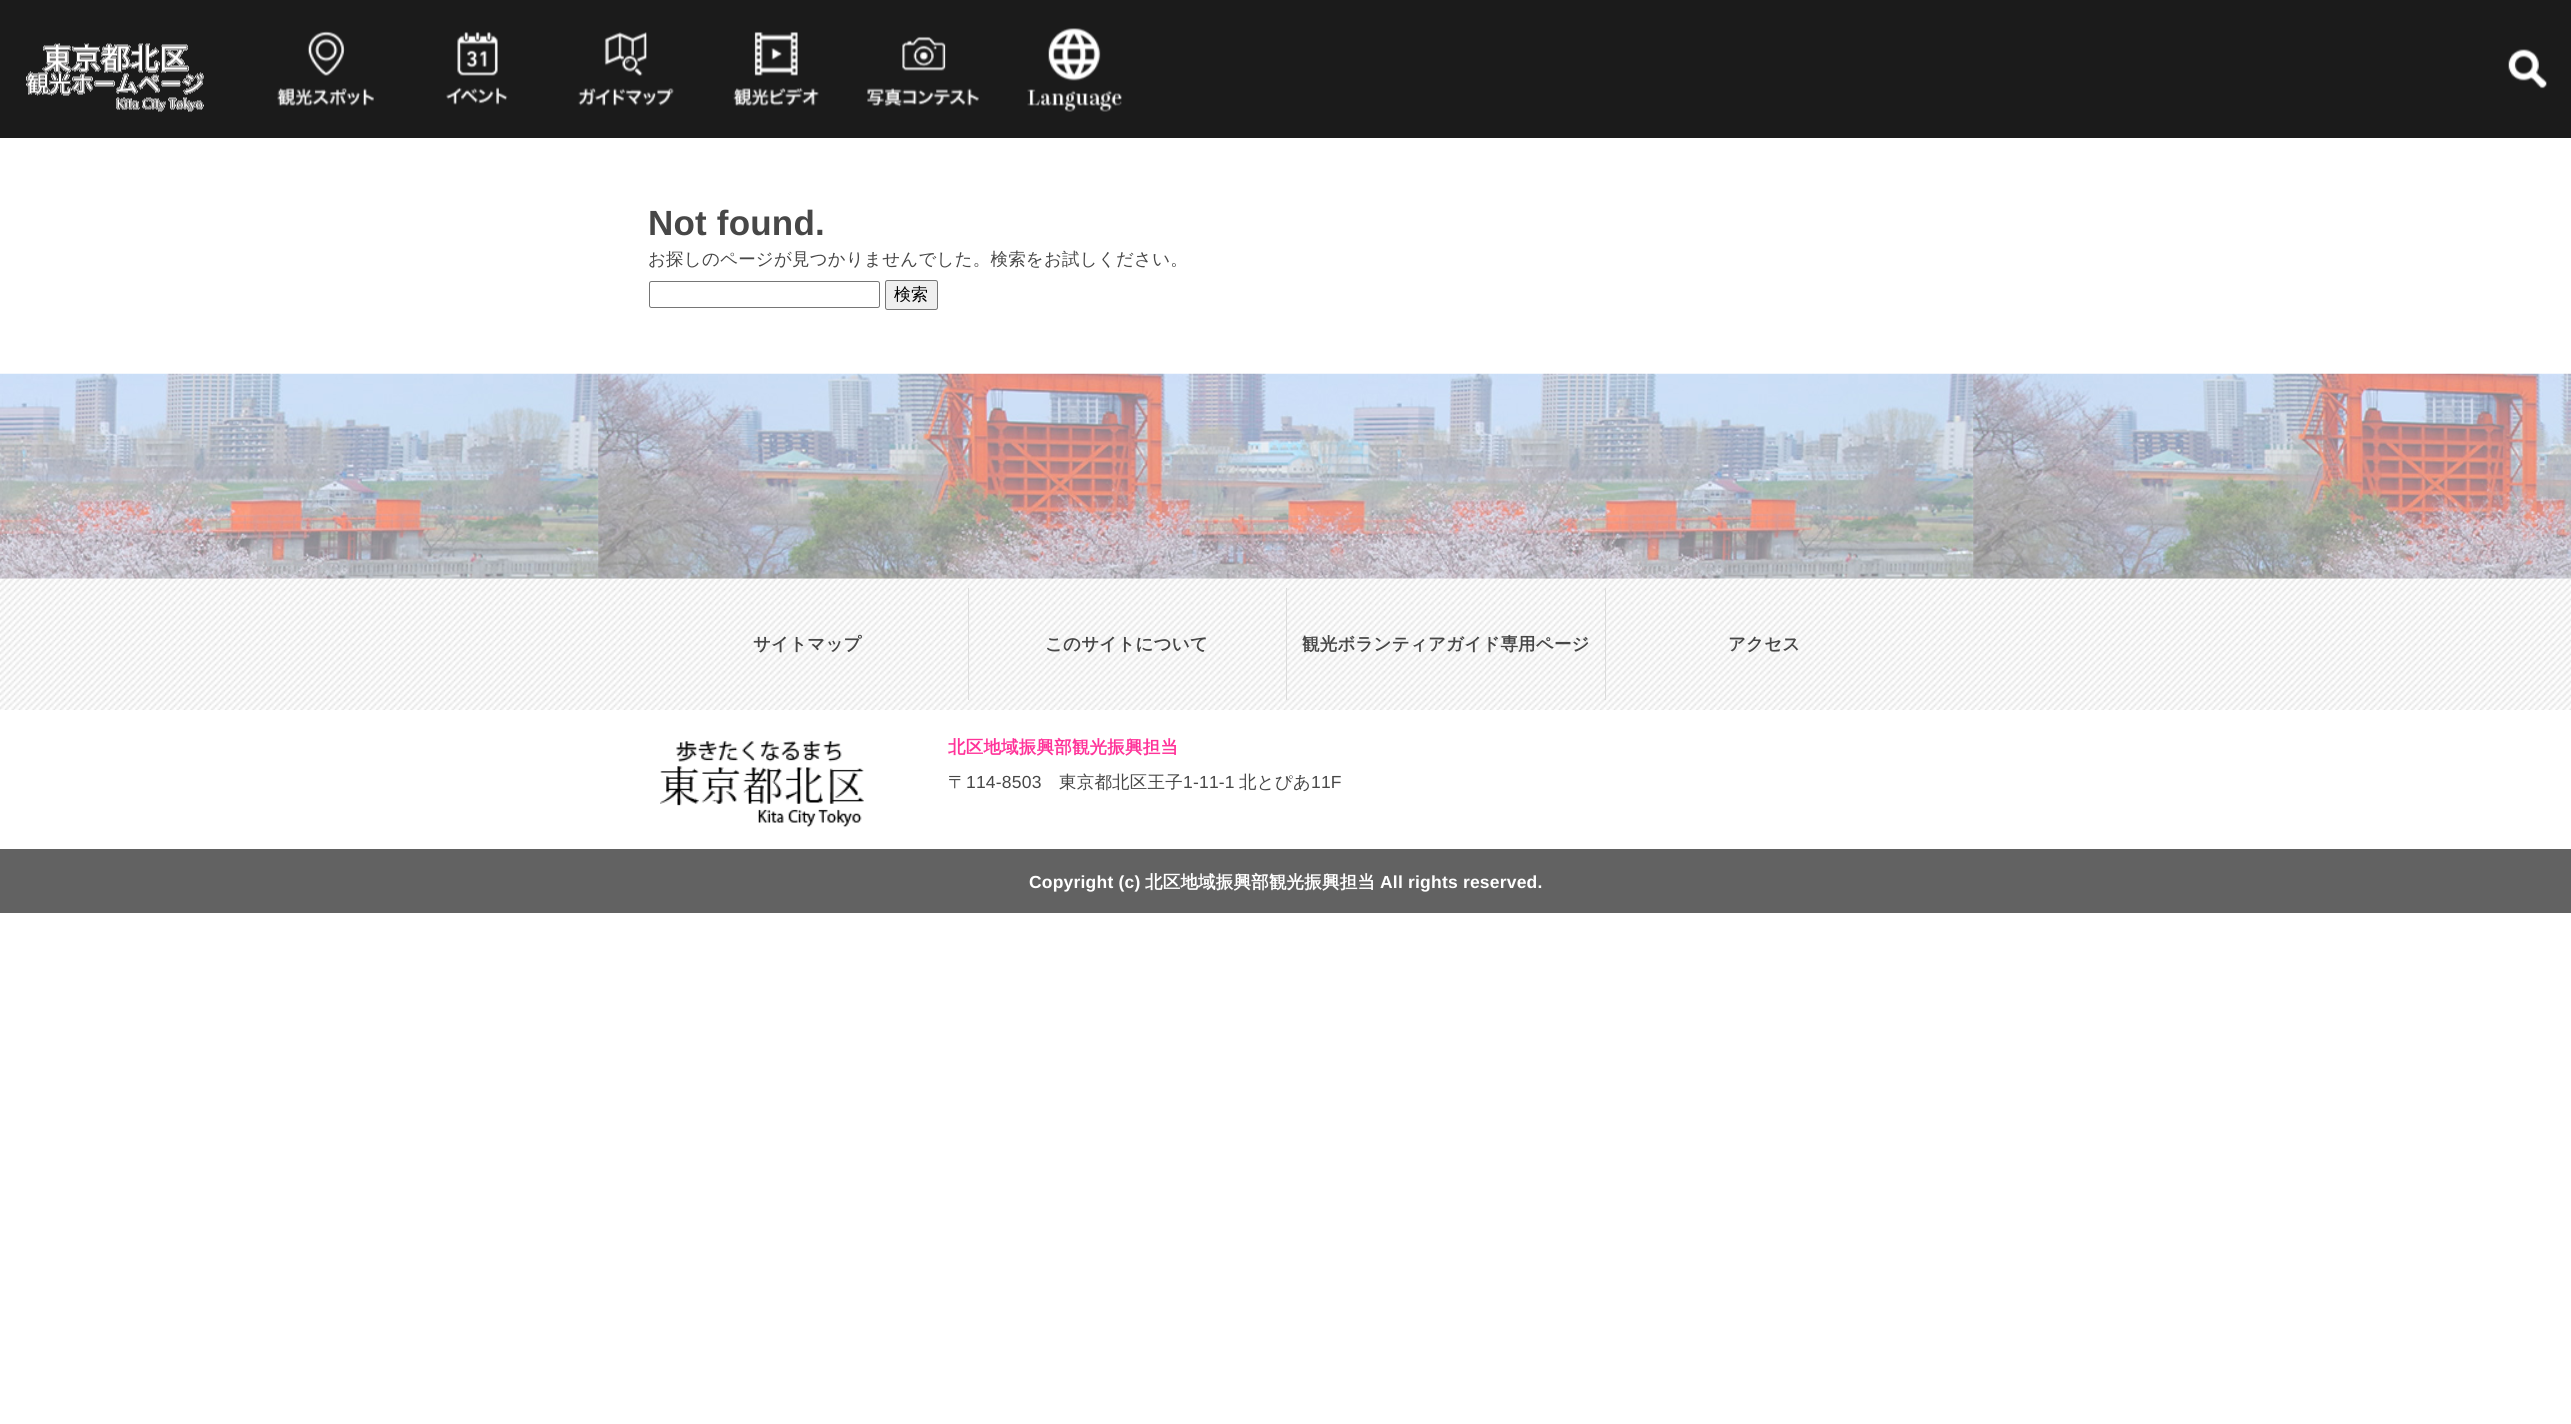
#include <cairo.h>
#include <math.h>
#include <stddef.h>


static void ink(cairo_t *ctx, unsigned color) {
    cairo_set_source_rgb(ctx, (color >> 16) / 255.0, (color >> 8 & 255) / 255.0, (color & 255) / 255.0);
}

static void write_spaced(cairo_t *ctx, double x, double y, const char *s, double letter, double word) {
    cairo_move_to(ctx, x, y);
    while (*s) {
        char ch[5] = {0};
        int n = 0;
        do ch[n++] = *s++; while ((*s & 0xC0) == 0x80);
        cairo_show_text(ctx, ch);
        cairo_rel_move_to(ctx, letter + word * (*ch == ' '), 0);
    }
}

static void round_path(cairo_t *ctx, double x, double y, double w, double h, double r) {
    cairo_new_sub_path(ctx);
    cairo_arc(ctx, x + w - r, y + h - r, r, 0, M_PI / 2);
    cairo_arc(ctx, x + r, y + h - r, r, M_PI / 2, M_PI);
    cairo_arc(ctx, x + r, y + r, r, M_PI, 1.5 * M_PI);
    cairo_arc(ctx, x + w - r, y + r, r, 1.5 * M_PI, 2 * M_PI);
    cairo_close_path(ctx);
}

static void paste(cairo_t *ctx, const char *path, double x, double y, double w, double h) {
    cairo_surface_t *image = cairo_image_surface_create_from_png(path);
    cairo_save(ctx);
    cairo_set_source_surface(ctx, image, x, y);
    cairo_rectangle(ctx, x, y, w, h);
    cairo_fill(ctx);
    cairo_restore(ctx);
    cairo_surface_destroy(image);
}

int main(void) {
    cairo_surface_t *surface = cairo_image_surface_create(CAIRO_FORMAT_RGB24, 2571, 1424);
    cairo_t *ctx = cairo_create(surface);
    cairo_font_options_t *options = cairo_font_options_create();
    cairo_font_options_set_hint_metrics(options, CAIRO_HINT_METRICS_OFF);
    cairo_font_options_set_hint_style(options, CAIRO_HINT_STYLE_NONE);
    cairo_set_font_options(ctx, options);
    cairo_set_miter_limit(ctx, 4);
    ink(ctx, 0xFFFFFF);
    cairo_paint(ctx);
    ink(ctx, 0x1B1B1B);
    cairo_rectangle(ctx, 0, 0, 2571, 138);
    cairo_fill(ctx);
    paste(ctx, "media/1.png", 277, 31, 97, 75);
    paste(ctx, "media/2.png", 446, 31, 62, 74);
    paste(ctx, "media/3.png", 578, 32, 96, 74);
    paste(ctx, "media/4.png", 733, 31, 86, 75);
    paste(ctx, "media/5.png", 867, 36, 112, 71);
    paste(ctx, "media/6.png", 1027, 28, 95, 84);
    paste(ctx, "media/7.png", 26, 43, 178, 69);
    paste(ctx, "media/8.png", 2508, 49, 39, 40);
    cairo_select_font_face(ctx, "Liberation Sans", CAIRO_FONT_SLANT_NORMAL, CAIRO_FONT_WEIGHT_BOLD);
    cairo_set_font_size(ctx, 35);
    ink(ctx, 0x474747);
    write_spaced(ctx, 648, 235, "Not found.", 0.2, 0);
    cairo_select_font_face(ctx, "WenQuanYi Zen Hei Medium", CAIRO_FONT_SLANT_NORMAL, CAIRO_FONT_WEIGHT_NORMAL);
    cairo_set_font_size(ctx, 17.5);
    write_spaced(ctx, 648, 265, "お探しのページが見つかりませんでした。検索をお試しください。", 0.2, 0);
    round_path(ctx, 649.5, 281.5, 230, 26, 2);
    ink(ctx, 0x767676);
    cairo_set_line_width(ctx, 1);
    cairo_stroke(ctx);
    ink(ctx, 0xEFEFEF);
    round_path(ctx, 885.5, 280.5, 52, 29, 2);
    cairo_fill_preserve(ctx);
    ink(ctx, 0x767676);
    cairo_stroke(ctx);
    cairo_set_font_size(ctx, 17);
    ink(ctx, 0x000000);
    cairo_move_to(ctx, 894, 300);
    cairo_show_text(ctx, "検索");
    paste(ctx, "media/9.png", 0, 373, 2571, 206);
    paste(ctx, "media/10.png", 0, 578, 2571, 132);
    cairo_select_font_face(ctx, "WenQuanYi Zen Hei", CAIRO_FONT_SLANT_NORMAL, CAIRO_FONT_WEIGHT_BOLD);
    cairo_set_font_size(ctx, 17.5);
    ink(ctx, 0x474747);
    write_spaced(ctx, 753, 650, "サイトマップ", 0.2, 0);
    ink(ctx, 0xDCDCDC);
    cairo_rectangle(ctx, 968, 588, 1, 112);
    cairo_fill(ctx);
    ink(ctx, 0x474747);
    write_spaced(ctx, 1045, 650, "このサイトについて", 0.2, 0);
    ink(ctx, 0xDCDCDC);
    cairo_rectangle(ctx, 1286, 588, 1, 112);
    cairo_fill(ctx);
    ink(ctx, 0x474747);
    write_spaced(ctx, 1302, 650, "観光ボランティアガイド専用ページ", 0.2, 0);
    ink(ctx, 0xDCDCDC);
    cairo_rectangle(ctx, 1605, 588, 1, 112);
    cairo_fill(ctx);
    ink(ctx, 0x474747);
    write_spaced(ctx, 1728, 650, "アクセス", 0.2, 0);
    paste(ctx, "media/11.png", 660, 741, 204, 87);
    ink(ctx, 0xFF3399);
    write_spaced(ctx, 948, 753, "北区地域振興部観光振興担当", 0.2, 0);
    cairo_select_font_face(ctx, "WenQuanYi Zen Hei Medium", CAIRO_FONT_SLANT_NORMAL, CAIRO_FONT_WEIGHT_NORMAL);
    ink(ctx, 0x474747);
    write_spaced(ctx, 948, 788, "〒", 0.2, 0);
    cairo_select_font_face(ctx, "Liberation Sans", CAIRO_FONT_SLANT_NORMAL, CAIRO_FONT_WEIGHT_NORMAL);
    write_spaced(ctx, 966, 788, "114-8503", 0.2, 0);
    cairo_select_font_face(ctx, "WenQuanYi Zen Hei Medium", CAIRO_FONT_SLANT_NORMAL, CAIRO_FONT_WEIGHT_NORMAL);
    write_spaced(ctx, 1059, 788, "東京都北区王子", 0.2, 0);
    cairo_select_font_face(ctx, "Liberation Sans", CAIRO_FONT_SLANT_NORMAL, CAIRO_FONT_WEIGHT_NORMAL);
    write_spaced(ctx, 1183, 788, "1-11-1", 0.2, 0);
    cairo_select_font_face(ctx, "WenQuanYi Zen Hei Medium", CAIRO_FONT_SLANT_NORMAL, CAIRO_FONT_WEIGHT_NORMAL);
    write_spaced(ctx, 1239, 788, "北とぴあ", 0.2, 0);
    cairo_select_font_face(ctx, "Liberation Sans", CAIRO_FONT_SLANT_NORMAL, CAIRO_FONT_WEIGHT_NORMAL);
    write_spaced(ctx, 1311, 788, "11F", 0.2, 0);
    ink(ctx, 0x626262);
    cairo_rectangle(ctx, 0, 849, 2571, 64);
    cairo_fill(ctx);
    cairo_select_font_face(ctx, "Liberation Sans", CAIRO_FONT_SLANT_NORMAL, CAIRO_FONT_WEIGHT_BOLD);
    ink(ctx, 0xFFFFFF);
    write_spaced(ctx, 1029, 888, "Copyright (c)", 0.2, 0);
    cairo_select_font_face(ctx, "WenQuanYi Zen Hei", CAIRO_FONT_SLANT_NORMAL, CAIRO_FONT_WEIGHT_BOLD);
    write_spaced(ctx, 1145, 888, "北区地域振興部観光振興担当", 0.2, 0);
    cairo_select_font_face(ctx, "Liberation Sans", CAIRO_FONT_SLANT_NORMAL, CAIRO_FONT_WEIGHT_BOLD);
    write_spaced(ctx, 1380, 888, "All rights reserved.", 0.2, 0);
    cairo_surface_write_to_png(surface, "image.png");
    cairo_font_options_destroy(options);
    cairo_destroy(ctx);
    cairo_surface_destroy(surface);
    return 0;
}
